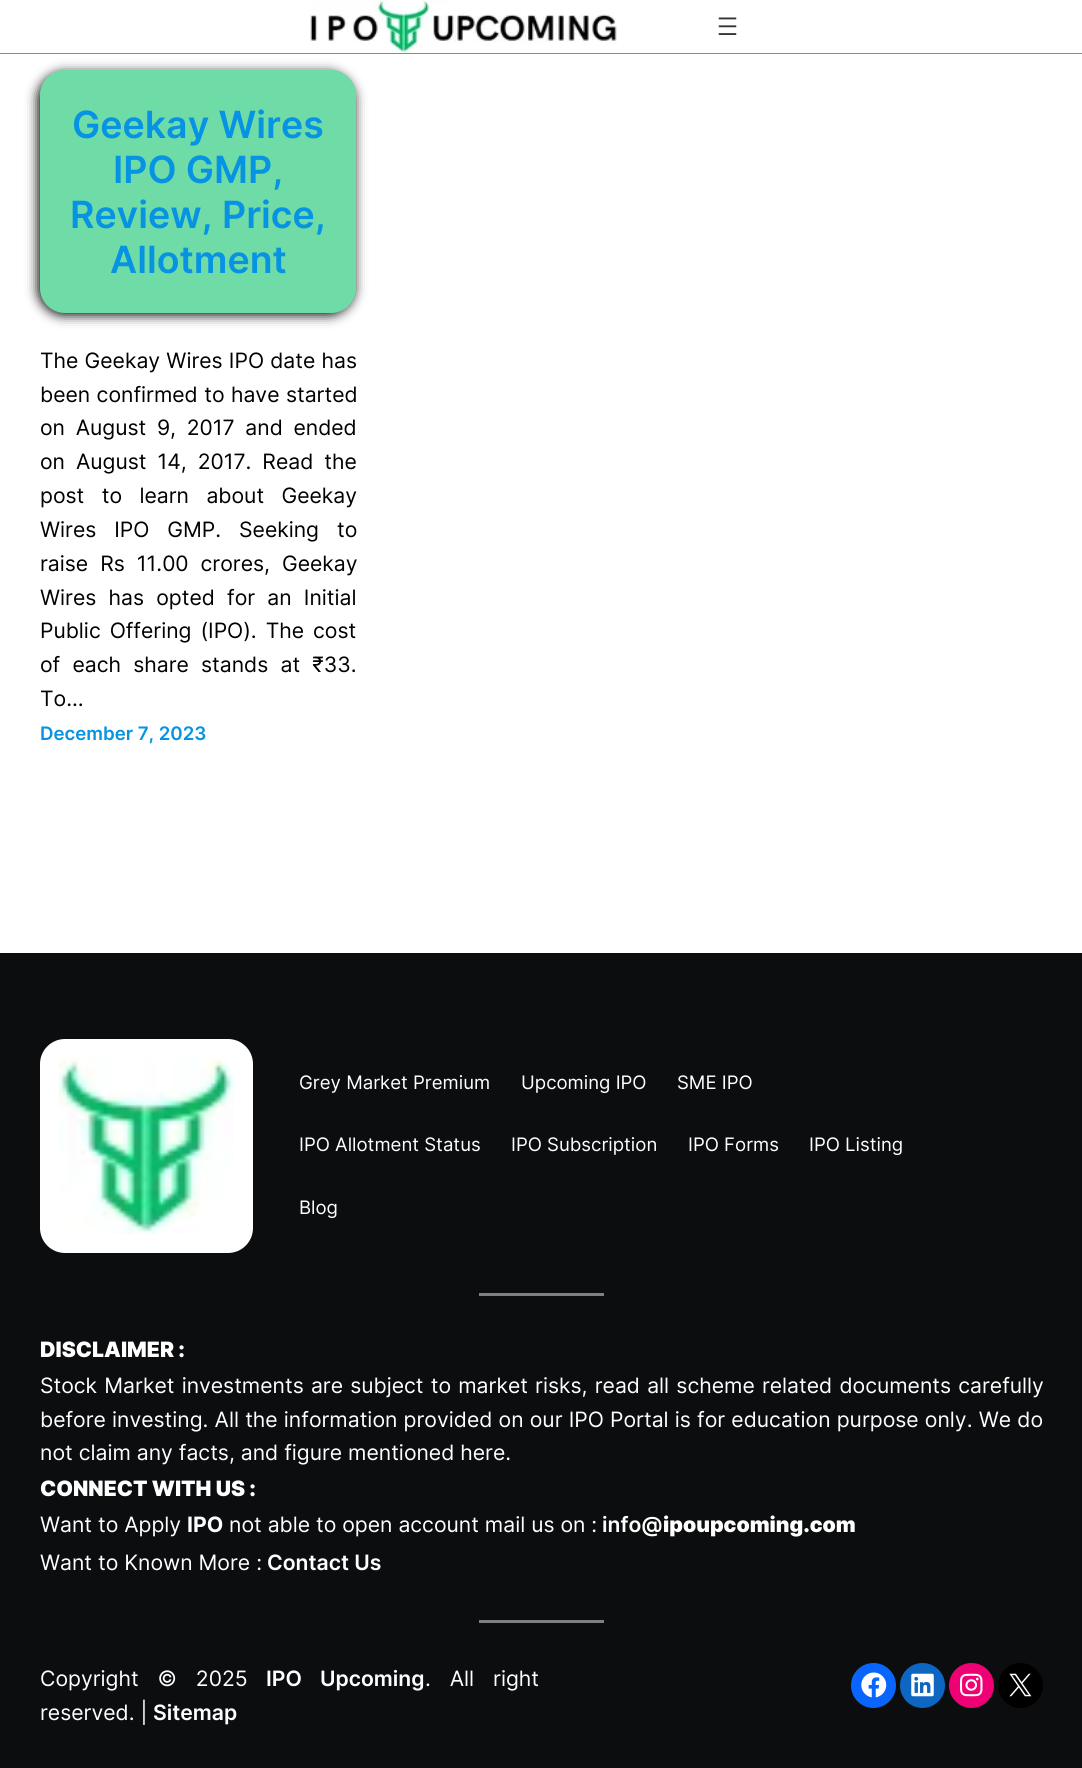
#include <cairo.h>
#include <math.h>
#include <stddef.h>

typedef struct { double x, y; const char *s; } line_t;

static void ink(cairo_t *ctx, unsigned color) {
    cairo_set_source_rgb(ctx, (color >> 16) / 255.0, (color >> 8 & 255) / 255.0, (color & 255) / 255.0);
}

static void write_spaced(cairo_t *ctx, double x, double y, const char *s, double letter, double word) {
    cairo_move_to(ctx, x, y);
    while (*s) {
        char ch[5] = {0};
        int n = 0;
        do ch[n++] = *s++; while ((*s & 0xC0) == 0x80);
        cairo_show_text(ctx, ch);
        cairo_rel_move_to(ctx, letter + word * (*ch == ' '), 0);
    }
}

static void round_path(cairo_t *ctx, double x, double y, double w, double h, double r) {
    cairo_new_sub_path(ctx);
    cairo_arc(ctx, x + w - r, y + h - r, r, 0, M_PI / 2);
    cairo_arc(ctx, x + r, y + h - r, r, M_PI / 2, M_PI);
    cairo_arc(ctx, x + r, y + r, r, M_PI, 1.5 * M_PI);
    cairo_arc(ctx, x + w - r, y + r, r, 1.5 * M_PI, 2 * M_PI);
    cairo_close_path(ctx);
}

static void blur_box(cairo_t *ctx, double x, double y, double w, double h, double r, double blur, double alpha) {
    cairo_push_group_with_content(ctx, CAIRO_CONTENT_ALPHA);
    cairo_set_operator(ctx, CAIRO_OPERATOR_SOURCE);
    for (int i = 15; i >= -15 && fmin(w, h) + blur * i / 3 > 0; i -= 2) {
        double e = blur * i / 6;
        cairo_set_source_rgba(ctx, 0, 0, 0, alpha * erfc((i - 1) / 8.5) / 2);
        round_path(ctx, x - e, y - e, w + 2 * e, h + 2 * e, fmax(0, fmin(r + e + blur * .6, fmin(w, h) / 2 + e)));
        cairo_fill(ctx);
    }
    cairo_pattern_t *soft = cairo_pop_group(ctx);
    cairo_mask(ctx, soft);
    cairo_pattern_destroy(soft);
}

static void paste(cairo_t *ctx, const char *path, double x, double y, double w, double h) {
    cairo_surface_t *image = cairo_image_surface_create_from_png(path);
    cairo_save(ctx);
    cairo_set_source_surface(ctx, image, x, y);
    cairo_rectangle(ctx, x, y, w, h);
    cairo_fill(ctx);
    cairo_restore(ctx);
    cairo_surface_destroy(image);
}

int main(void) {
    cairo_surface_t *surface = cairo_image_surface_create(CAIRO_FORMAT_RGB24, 1082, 1768);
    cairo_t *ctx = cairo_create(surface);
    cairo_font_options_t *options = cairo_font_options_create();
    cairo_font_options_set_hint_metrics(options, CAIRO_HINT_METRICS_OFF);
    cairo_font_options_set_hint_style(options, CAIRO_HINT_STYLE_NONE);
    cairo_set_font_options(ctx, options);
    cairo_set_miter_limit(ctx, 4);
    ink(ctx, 0xFFFFFF);
    cairo_paint(ctx);
    ink(ctx, 0x00D084);
    cairo_rectangle(ctx, 0, 53, 1082, 1);
    cairo_fill(ctx);
    paste(ctx, "media/1.png", 310, 0, 307, 53);
    paste(ctx, "media/2.png", 718, 17, 19, 18);
    ink(ctx, 0x000000);
    blur_box(ctx, 38, 73, 316, 242, 25, 6, 1);
    ink(ctx, 0x6FDBA7);
    round_path(ctx, 40, 70, 316, 243, 25);
    cairo_fill(ctx);
    cairo_select_font_face(ctx, "Inter SemiBold", CAIRO_FONT_SLANT_NORMAL, CAIRO_FONT_WEIGHT_NORMAL);
    cairo_set_font_size(ctx, 37.5);
    ink(ctx, 0x0693E3);
    {
        static const line_t items[] = {
            {72, 138, "Geekay Wires"},
            {113, 183, "IPO GMP,"},
            {70, 228, "Review, Price,"},
            {110, 273, "Allotment"},
        };
        for (size_t i = 0; i < sizeof items / sizeof *items; i++) {
            cairo_move_to(ctx, items[i].x, items[i].y);
            cairo_show_text(ctx, items[i].s);
        }
    }
    cairo_select_font_face(ctx, "Inter", CAIRO_FONT_SLANT_NORMAL, CAIRO_FONT_WEIGHT_NORMAL);
    cairo_set_font_size(ctx, 21.15);
    ink(ctx, 0x000000);
    write_spaced(ctx, 40, 368, "The Geekay Wires IPO date has", 0, 0.25);
    write_spaced(ctx, 40, 402, "been confirmed to have started", 0, 0.5);
    write_spaced(ctx, 40, 435, "on August 9, 2017 and ended", 0, 4.75);
    write_spaced(ctx, 40, 469, "on August 14, 2017. Read the", 0, 5);
    write_spaced(ctx, 40, 503, "post to learn about Geekay", 0, 11.5);
    write_spaced(ctx, 40, 537, "Wires IPO GMP. Seeking to", 0, 12);
    write_spaced(ctx, 40, 571, "raise Rs 11.00 crores, Geekay", 0, 6);
    write_spaced(ctx, 40, 605, "Wires has opted for an Initial", 0, 6.25);
    write_spaced(ctx, 40, 638, "Public Offering (IPO). The cost", 0, 3);
    write_spaced(ctx, 40, 672, "of each share stands at ₹33.", 0, 6.25);
    cairo_move_to(ctx, 40, 706);
    cairo_show_text(ctx, "To…");
    cairo_select_font_face(ctx, "Inter SemiBold", CAIRO_FONT_SLANT_NORMAL, CAIRO_FONT_WEIGHT_NORMAL);
    cairo_set_font_size(ctx, 18.6);
    ink(ctx, 0x0693E3);
    cairo_move_to(ctx, 40, 740);
    cairo_show_text(ctx, "December 7, 2023");
    ink(ctx, 0x0C0D0E);
    cairo_rectangle(ctx, 0, 953, 1082, 815);
    cairo_fill(ctx);
    ink(ctx, 0xFFFFFF);
    round_path(ctx, 40, 1039, 213, 214, 25);
    cairo_fill(ctx);
    paste(ctx, "media/3.png", 58, 1058, 176, 176);
    cairo_select_font_face(ctx, "Inter", CAIRO_FONT_SLANT_NORMAL, CAIRO_FONT_WEIGHT_NORMAL);
    {
        static const line_t items[] = {
            {299, 1089, "Grey Market Premium"},
            {521, 1089, "Upcoming IPO"},
            {677, 1089, "SME IPO"},
            {299, 1151, "IPO Allotment Status"},
            {511, 1151, "IPO Subscription"},
            {688, 1151, "IPO Forms"},
            {809, 1151, "IPO Listing"},
            {299, 1214, "Blog"},
        };
        for (size_t i = 0; i < sizeof items / sizeof *items; i++) {
            cairo_move_to(ctx, items[i].x, items[i].y);
            cairo_show_text(ctx, items[i].s);
        }
    }
    ink(ctx, 0x808080);
    cairo_rectangle(ctx, 479, 1293, 125, 3);
    cairo_fill(ctx);
    cairo_select_font_face(ctx, "Inter Black", CAIRO_FONT_SLANT_NORMAL, CAIRO_FONT_WEIGHT_NORMAL);
    cairo_set_font_size(ctx, 21.15);
    ink(ctx, 0xFFFFFF);
    cairo_move_to(ctx, 40, 1357);
    cairo_show_text(ctx, "DISCLAIMER :");
    cairo_select_font_face(ctx, "Inter", CAIRO_FONT_SLANT_NORMAL, CAIRO_FONT_WEIGHT_NORMAL);
    write_spaced(ctx, 40, 1393, "Stock Market investments are subject to market risks, read all scheme related documents carefully", 0, 1.25);
    write_spaced(ctx, 40, 1427, "before investing. All the information provided on our IPO Portal is for education purpose only. We do", 0, 0.25);
    cairo_move_to(ctx, 40, 1460);
    cairo_show_text(ctx, "not claim any facts, and figure mentioned here.");
    cairo_select_font_face(ctx, "Inter Black", CAIRO_FONT_SLANT_NORMAL, CAIRO_FONT_WEIGHT_NORMAL);
    cairo_move_to(ctx, 40, 1496);
    cairo_show_text(ctx, "CONNECT WITH US :");
    cairo_select_font_face(ctx, "Inter", CAIRO_FONT_SLANT_NORMAL, CAIRO_FONT_WEIGHT_NORMAL);
    cairo_move_to(ctx, 40, 1532);
    cairo_show_text(ctx, "Want to Apply");
    cairo_select_font_face(ctx, "Inter", CAIRO_FONT_SLANT_NORMAL, CAIRO_FONT_WEIGHT_BOLD);
    cairo_move_to(ctx, 187, 1532);
    cairo_show_text(ctx, "IPO");
    cairo_select_font_face(ctx, "Inter", CAIRO_FONT_SLANT_NORMAL, CAIRO_FONT_WEIGHT_NORMAL);
    cairo_move_to(ctx, 229, 1532);
    cairo_show_text(ctx, "not able to open account mail us on :");
    cairo_select_font_face(ctx, "Inter SemiBold", CAIRO_FONT_SLANT_NORMAL, CAIRO_FONT_WEIGHT_NORMAL);
    cairo_move_to(ctx, 602, 1532);
    cairo_show_text(ctx, "info@");
    cairo_select_font_face(ctx, "Inter Black", CAIRO_FONT_SLANT_NORMAL, CAIRO_FONT_WEIGHT_NORMAL);
    cairo_move_to(ctx, 663, 1532);
    cairo_show_text(ctx, "ipoupcoming.com");
    cairo_select_font_face(ctx, "Inter", CAIRO_FONT_SLANT_NORMAL, CAIRO_FONT_WEIGHT_NORMAL);
    cairo_move_to(ctx, 40, 1570);
    cairo_show_text(ctx, "Want to Known More :");
    cairo_select_font_face(ctx, "Inter SemiBold", CAIRO_FONT_SLANT_NORMAL, CAIRO_FONT_WEIGHT_NORMAL);
    cairo_move_to(ctx, 267, 1570);
    cairo_show_text(ctx, "Contact Us");
    ink(ctx, 0x808080);
    cairo_rectangle(ctx, 479, 1620, 125, 3);
    cairo_fill(ctx);
    cairo_select_font_face(ctx, "Inter", CAIRO_FONT_SLANT_NORMAL, CAIRO_FONT_WEIGHT_NORMAL);
    ink(ctx, 0xFFFFFF);
    write_spaced(ctx, 40, 1686, "Copyright © 2025", 0, 13);
    cairo_select_font_face(ctx, "Inter SemiBold", CAIRO_FONT_SLANT_NORMAL, CAIRO_FONT_WEIGHT_NORMAL);
    write_spaced(ctx, 266, 1686, "IPO Upcoming", 0, 13);
    cairo_select_font_face(ctx, "Inter", CAIRO_FONT_SLANT_NORMAL, CAIRO_FONT_WEIGHT_NORMAL);
    write_spaced(ctx, 425, 1686, ". All right", 0, 13);
    cairo_move_to(ctx, 40, 1720);
    cairo_show_text(ctx, "reserved. |");
    cairo_select_font_face(ctx, "Inter SemiBold", CAIRO_FONT_SLANT_NORMAL, CAIRO_FONT_WEIGHT_NORMAL);
    cairo_move_to(ctx, 153, 1720);
    cairo_show_text(ctx, "Sitemap");
    ink(ctx, 0x0866FF);
    cairo_new_path(ctx);
    cairo_arc(ctx, 873.5, 1685.5, 22.5, 0, 2 * M_PI);
    cairo_fill(ctx);
    paste(ctx, "media/4.png", 861, 1672, 26, 26);
    ink(ctx, 0x0D66C2);
    cairo_arc(ctx, 922.5, 1685.5, 22.5, 0, 2 * M_PI);
    cairo_fill(ctx);
    paste(ctx, "media/5.png", 911, 1673, 23, 24);
    ink(ctx, 0xF00075);
    cairo_arc(ctx, 971.5, 1685.5, 22.5, 0, 2 * M_PI);
    cairo_fill(ctx);
    paste(ctx, "media/6.png", 960, 1673, 23, 24);
    ink(ctx, 0x000000);
    cairo_arc(ctx, 1020.5, 1685.5, 22.5, 0, 2 * M_PI);
    cairo_fill(ctx);
    paste(ctx, "media/7.png", 1009, 1673, 23, 24);
    cairo_surface_write_to_png(surface, "image.png");
    cairo_font_options_destroy(options);
    cairo_destroy(ctx);
    cairo_surface_destroy(surface);
    return 0;
}
